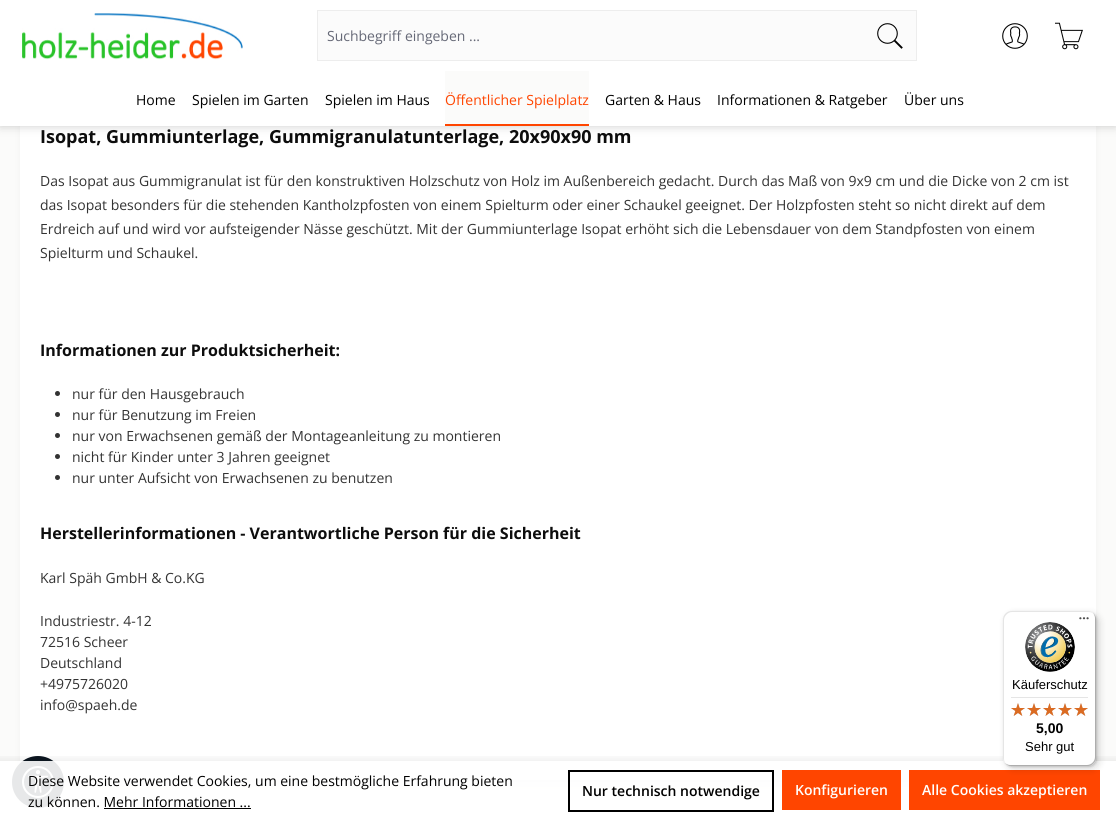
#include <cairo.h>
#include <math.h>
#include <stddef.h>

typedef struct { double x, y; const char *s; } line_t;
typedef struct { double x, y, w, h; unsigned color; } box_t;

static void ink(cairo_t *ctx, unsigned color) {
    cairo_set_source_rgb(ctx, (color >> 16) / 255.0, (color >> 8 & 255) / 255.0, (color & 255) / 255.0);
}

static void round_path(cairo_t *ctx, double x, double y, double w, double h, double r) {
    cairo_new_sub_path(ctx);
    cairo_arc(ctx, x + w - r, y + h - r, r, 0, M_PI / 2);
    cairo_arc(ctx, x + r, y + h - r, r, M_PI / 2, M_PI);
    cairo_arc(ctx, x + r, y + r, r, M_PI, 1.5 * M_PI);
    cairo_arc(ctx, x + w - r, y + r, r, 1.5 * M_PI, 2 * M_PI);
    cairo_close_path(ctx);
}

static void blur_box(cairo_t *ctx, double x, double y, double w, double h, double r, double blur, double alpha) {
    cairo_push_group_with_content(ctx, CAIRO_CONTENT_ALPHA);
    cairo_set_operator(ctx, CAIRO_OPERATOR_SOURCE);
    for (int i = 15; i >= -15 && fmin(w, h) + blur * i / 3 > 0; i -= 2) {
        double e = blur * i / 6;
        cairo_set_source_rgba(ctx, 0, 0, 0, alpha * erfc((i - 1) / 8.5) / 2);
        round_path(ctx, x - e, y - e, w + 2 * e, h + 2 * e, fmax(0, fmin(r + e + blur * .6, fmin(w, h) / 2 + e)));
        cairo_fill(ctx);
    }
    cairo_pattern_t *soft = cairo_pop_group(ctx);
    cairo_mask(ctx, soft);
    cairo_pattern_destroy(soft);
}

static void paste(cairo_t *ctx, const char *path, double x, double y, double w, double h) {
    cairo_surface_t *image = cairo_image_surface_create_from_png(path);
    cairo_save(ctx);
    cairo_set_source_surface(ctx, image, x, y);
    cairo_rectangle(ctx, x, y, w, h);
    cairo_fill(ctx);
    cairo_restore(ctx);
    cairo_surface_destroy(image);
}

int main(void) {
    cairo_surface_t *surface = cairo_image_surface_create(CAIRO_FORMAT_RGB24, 1116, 820);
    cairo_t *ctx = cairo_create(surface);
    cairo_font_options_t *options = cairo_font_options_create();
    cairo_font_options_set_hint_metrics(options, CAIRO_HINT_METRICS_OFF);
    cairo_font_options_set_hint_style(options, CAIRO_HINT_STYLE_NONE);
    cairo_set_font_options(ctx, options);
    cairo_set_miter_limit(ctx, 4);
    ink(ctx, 0xFBFBFA);
    cairo_paint(ctx);
    ink(ctx, 0x000000);
    blur_box(ctx, 26, 15, 1064, 763, 0, 5, 0.2);
    ink(ctx, 0xFFFFFF);
    cairo_rectangle(ctx, 20, 126, 1076, 654);
    cairo_fill(ctx);
    ink(ctx, 0x000000);
    blur_box(ctx, 0, 70, 1116, 56, 0, 5, 0.2);
    ink(ctx, 0xFFFFFF);
    cairo_rectangle(ctx, 0, 0, 1116, 126);
    cairo_fill(ctx);
    paste(ctx, "media/1.png", 22, 13, 221, 47);
    {
        static const box_t items[] = {
            {318, 11, 598, 49, 0xFBFBFB},
            {317, 10, 600, 1, 0xEDEDED},
            {317, 60, 548, 1, 0xEDEDED},
            {317, 10, 1, 51, 0xEDEDED},
        };
        for (size_t i = 0; i < sizeof items / sizeof *items; i++) {
            ink(ctx, items[i].color);
            cairo_rectangle(ctx, items[i].x, items[i].y, items[i].w, items[i].h);
            cairo_fill(ctx);
        }
    }
    cairo_select_font_face(ctx, "Open Sans", CAIRO_FONT_SLANT_NORMAL, CAIRO_FONT_WEIGHT_NORMAL);
    cairo_set_font_size(ctx, 14);
    ink(ctx, 0x666977);
    cairo_move_to(ctx, 327, 41);
    cairo_show_text(ctx, "Suchbegriff eingeben ...");
    ink(ctx, 0xEDEDED);
    cairo_rectangle(ctx, 916, 10, 1, 51);
    cairo_fill(ctx);
    cairo_rectangle(ctx, 864, 60, 53, 1);
    cairo_fill(ctx);
    paste(ctx, "media/2.png", 877, 23, 26, 26);
    paste(ctx, "media/3.png", 1002, 23, 26, 26);
    paste(ctx, "media/4.png", 1055, 22, 28, 28);
    ink(ctx, 0x000000);
    {
        static const line_t items[] = {
            {136, 105, "Home"},
            {192, 105, "Spielen im Garten"},
            {325, 105, "Spielen im Haus"},
        };
        for (size_t i = 0; i < sizeof items / sizeof *items; i++) {
            cairo_move_to(ctx, items[i].x, items[i].y);
            cairo_show_text(ctx, items[i].s);
        }
    }
    ink(ctx, 0xFBFBFA);
    cairo_rectangle(ctx, 445, 71, 144, 53);
    cairo_fill(ctx);
    ink(ctx, 0xFF4500);
    cairo_rectangle(ctx, 445, 124, 144, 2);
    cairo_fill(ctx);
    cairo_move_to(ctx, 445, 105);
    cairo_show_text(ctx, "Öffentlicher Spielplatz");
    ink(ctx, 0x000000);
    {
        static const line_t items[] = {
            {605, 105, "Garten & Haus"},
            {717, 105, "Informationen & Ratgeber"},
            {904, 105, "Über uns"},
        };
        for (size_t i = 0; i < sizeof items / sizeof *items; i++) {
            cairo_move_to(ctx, items[i].x, items[i].y);
            cairo_show_text(ctx, items[i].s);
        }
    }
    cairo_select_font_face(ctx, "Open Sans", CAIRO_FONT_SLANT_NORMAL, CAIRO_FONT_WEIGHT_BOLD);
    cairo_set_font_size(ctx, 18);
    ink(ctx, 0x0D0D0D);
    cairo_move_to(ctx, 40, 143);
    cairo_show_text(ctx, "Isopat, Gummiunterlage, Gummigranulatunterlage, 20x90x90 mm");
    cairo_select_font_face(ctx, "Open Sans", CAIRO_FONT_SLANT_NORMAL, CAIRO_FONT_WEIGHT_NORMAL);
    cairo_set_font_size(ctx, 14);
    ink(ctx, 0x333333);
    {
        static const line_t items[] = {
            {40, 186, "Das Isopat aus Gummigranulat ist für den konstruktiven Holzschutz von Holz im Außenbereich gedacht. Durch das Maß von 9x9 cm und die Dicke von 2 cm ist"},
            {40, 210, "das Isopat besonders für die stehenden Kantholzpfosten von einem Spielturm oder einer Schaukel geeignet. Der Holzpfosten steht so nicht direkt auf dem"},
            {40, 234, "Erdreich auf und wird vor aufsteigender Nässe geschützt. Mit der Gummiunterlage Isopat erhöht sich die Lebensdauer von dem Standpfosten von einem"},
            {40, 258, "Spielturm und Schaukel."},
        };
        for (size_t i = 0; i < sizeof items / sizeof *items; i++) {
            cairo_move_to(ctx, items[i].x, items[i].y);
            cairo_show_text(ctx, items[i].s);
        }
    }
    cairo_select_font_face(ctx, "Open Sans", CAIRO_FONT_SLANT_NORMAL, CAIRO_FONT_WEIGHT_BOLD);
    cairo_set_font_size(ctx, 16);
    ink(ctx, 0x0D0D0D);
    cairo_move_to(ctx, 40, 356);
    cairo_show_text(ctx, "Informationen zur Produktsicherheit:");
    ink(ctx, 0x333333);
    cairo_new_path(ctx);
    cairo_arc(ctx, 57.5, 393.5, 2.5, 0, 2 * M_PI);
    cairo_fill(ctx);
    cairo_select_font_face(ctx, "Open Sans", CAIRO_FONT_SLANT_NORMAL, CAIRO_FONT_WEIGHT_NORMAL);
    cairo_set_font_size(ctx, 14);
    cairo_move_to(ctx, 72, 399);
    cairo_show_text(ctx, "nur für den Hausgebrauch");
    cairo_new_path(ctx);
    cairo_arc(ctx, 57.5, 414.5, 2.5, 0, 2 * M_PI);
    cairo_fill(ctx);
    cairo_move_to(ctx, 72, 420);
    cairo_show_text(ctx, "nur für Benutzung im Freien");
    cairo_new_path(ctx);
    cairo_arc(ctx, 57.5, 435.5, 2.5, 0, 2 * M_PI);
    cairo_fill(ctx);
    cairo_move_to(ctx, 72, 441);
    cairo_show_text(ctx, "nur von Erwachsenen gemäß der Montageanleitung zu montieren");
    cairo_new_path(ctx);
    cairo_arc(ctx, 57.5, 456.5, 2.5, 0, 2 * M_PI);
    cairo_fill(ctx);
    cairo_move_to(ctx, 72, 462);
    cairo_show_text(ctx, "nicht für Kinder unter 3 Jahren geeignet");
    cairo_new_path(ctx);
    cairo_arc(ctx, 57.5, 477.5, 2.5, 0, 2 * M_PI);
    cairo_fill(ctx);
    cairo_move_to(ctx, 72, 483);
    cairo_show_text(ctx, "nur unter Aufsicht von Erwachsenen zu benutzen");
    cairo_select_font_face(ctx, "Open Sans", CAIRO_FONT_SLANT_NORMAL, CAIRO_FONT_WEIGHT_BOLD);
    cairo_set_font_size(ctx, 16);
    ink(ctx, 0x0D0D0D);
    cairo_move_to(ctx, 40, 539);
    cairo_show_text(ctx, "Herstellerinformationen - Verantwortliche Person für die Sicherheit");
    cairo_select_font_face(ctx, "Open Sans", CAIRO_FONT_SLANT_NORMAL, CAIRO_FONT_WEIGHT_NORMAL);
    cairo_set_font_size(ctx, 14);
    ink(ctx, 0x333333);
    {
        static const line_t items[] = {
            {40, 583, "Karl Späh GmbH & Co.KG"},
            {40, 626, "Industriestr. 4-12"},
            {40, 647, "72516 Scheer"},
            {40, 668, "Deutschland"},
            {40, 689, "+4975726020"},
            {40, 710, "info@spaeh.de"},
        };
        for (size_t i = 0; i < sizeof items / sizeof *items; i++) {
            cairo_move_to(ctx, items[i].x, items[i].y);
            cairo_show_text(ctx, items[i].s);
        }
    }
    ink(ctx, 0x0C1620);
    cairo_new_path(ctx);
    cairo_arc(ctx, 38, 782, 26, 0, 2 * M_PI);
    cairo_fill(ctx);
    paste(ctx, "media/11.png", 22, 766, 32, 32);
    cairo_save(ctx);
    cairo_rectangle(ctx, 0, 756, 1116, 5);
    cairo_clip(ctx);
    ink(ctx, 0x000000);
    blur_box(ctx, -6, 759, 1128, 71, 0, 5, 0.08);
    cairo_restore(ctx);
    cairo_set_source_rgba(ctx, 1, 1, 1, 0.9);
    cairo_rectangle(ctx, 0, 761, 1116, 59);
    cairo_fill(ctx);
    ink(ctx, 0xFF4500);
    cairo_rectangle(ctx, 909, 770, 191, 40);
    cairo_fill(ctx);
    ink(ctx, 0x000000);
    blur_box(ctx, 1006, 614, 93, 155, 8, 4, 0.15);
    blur_box(ctx, 1004, 612, 93, 155, 8, 1, 0.15);
    ink(ctx, 0xFFFFFF);
    round_path(ctx, 1003, 611, 93, 155, 8);
    cairo_fill(ctx);
    ink(ctx, 0xE5E5E5);
    cairo_new_path(ctx);
    cairo_move_to(ctx, 1012, 612);
    cairo_line_to(ctx, 1089, 612);
    cairo_curve_to(ctx, 1091, 612, 1093, 613, 1095, 615);
    cairo_curve_to(ctx, 1093, 613, 1091, 611, 1088, 611);
    cairo_line_to(ctx, 1011, 611);
    cairo_curve_to(ctx, 1007, 611, 1003, 615, 1003, 619);
    cairo_line_to(ctx, 1003, 758);
    cairo_curve_to(ctx, 1003, 761, 1005, 763, 1007, 765);
    cairo_curve_to(ctx, 1005, 763, 1004, 761, 1004, 759);
    cairo_line_to(ctx, 1004, 620);
    cairo_curve_to(ctx, 1004, 616, 1008, 612, 1012, 612);
    cairo_close_path(ctx);
    cairo_fill(ctx);
    cairo_set_source_rgba(ctx, 0, 0, 0, 0.2);
    cairo_new_path(ctx);
    cairo_move_to(ctx, 1004, 762);
    cairo_curve_to(ctx, 1006, 764, 1008, 766, 1011, 766);
    cairo_line_to(ctx, 1088, 766);
    cairo_curve_to(ctx, 1092, 766, 1096, 762, 1096, 758);
    cairo_line_to(ctx, 1096, 619);
    cairo_curve_to(ctx, 1096, 616, 1094, 614, 1092, 612);
    cairo_curve_to(ctx, 1094, 614, 1095, 616, 1095, 618);
    cairo_line_to(ctx, 1095, 757);
    cairo_curve_to(ctx, 1095, 761, 1091, 765, 1087, 765);
    cairo_line_to(ctx, 1010, 765);
    cairo_curve_to(ctx, 1008, 765, 1006, 764, 1004, 762);
    cairo_close_path(ctx);
    cairo_fill(ctx);
    cairo_set_source_rgba(ctx, 0.196, 0.196, 0.196, 0.2);
    cairo_new_path(ctx);
    cairo_move_to(ctx, 1005, 763);
    cairo_curve_to(ctx, 1006, 765, 1009, 766, 1011, 766);
    cairo_line_to(ctx, 1088, 766);
    cairo_curve_to(ctx, 1092, 766, 1096, 762, 1096, 758);
    cairo_line_to(ctx, 1096, 619);
    cairo_curve_to(ctx, 1096, 617, 1095, 614, 1093, 613);
    cairo_curve_to(ctx, 1094, 614, 1095, 616, 1095, 618);
    cairo_line_to(ctx, 1095, 757);
    cairo_curve_to(ctx, 1095, 762, 1092, 765, 1087, 765);
    cairo_line_to(ctx, 1010, 765);
    cairo_curve_to(ctx, 1008, 765, 1006, 764, 1005, 763);
    cairo_close_path(ctx);
    cairo_fill(ctx);
    paste(ctx, "media/5.png", 1079, 617, 10, 3);
    cairo_set_source_rgba(ctx, 1, 1, 1, 0.3);
    cairo_new_path(ctx);
    cairo_move_to(ctx, 1088, 766);
    cairo_curve_to(ctx, 1092.5, 766, 1096, 762.5, 1096, 758);
    cairo_curve_to(ctx, 1096, 762, 1092, 766, 1088, 766);
    cairo_close_path(ctx);
    cairo_fill(ctx);
    paste(ctx, "media/6.png", 1025, 622, 50, 50);
    cairo_select_font_face(ctx, "Liberation Sans", CAIRO_FONT_SLANT_NORMAL, CAIRO_FONT_WEIGHT_NORMAL);
    cairo_set_font_size(ctx, 13);
    ink(ctx, 0x000000);
    cairo_move_to(ctx, 1012, 689);
    cairo_show_text(ctx, "Käuferschutz");
    ink(ctx, 0xE5E5E5);
    cairo_rectangle(ctx, 1011, 697, 77, 1);
    cairo_fill(ctx);
    paste(ctx, "media/7.png", 1011, 703, 14, 13);
    paste(ctx, "media/7.png", 1027, 703, 14, 13);
    paste(ctx, "media/8.png", 1043, 703, 13, 13);
    paste(ctx, "media/7.png", 1058, 703, 14, 13);
    paste(ctx, "media/7.png", 1074, 703, 14, 13);
    paste(ctx, "media/9.png", 1011, 703, 14, 13);
    paste(ctx, "media/9.png", 1027, 703, 14, 13);
    paste(ctx, "media/10.png", 1043, 703, 13, 13);
    paste(ctx, "media/9.png", 1058, 703, 14, 13);
    paste(ctx, "media/9.png", 1074, 703, 14, 13);
    cairo_select_font_face(ctx, "Liberation Sans", CAIRO_FONT_SLANT_NORMAL, CAIRO_FONT_WEIGHT_BOLD);
    cairo_set_font_size(ctx, 14);
    ink(ctx, 0x000000);
    cairo_move_to(ctx, 1036, 733);
    cairo_show_text(ctx, "5,00");
    cairo_select_font_face(ctx, "Liberation Sans", CAIRO_FONT_SLANT_NORMAL, CAIRO_FONT_WEIGHT_NORMAL);
    cairo_set_font_size(ctx, 13);
    cairo_move_to(ctx, 1025, 751);
    cairo_show_text(ctx, "Sehr gut");
    cairo_select_font_face(ctx, "Open Sans", CAIRO_FONT_SLANT_NORMAL, CAIRO_FONT_WEIGHT_NORMAL);
    cairo_set_font_size(ctx, 14);
    cairo_move_to(ctx, 28, 786);
    cairo_show_text(ctx, "Diese Website verwendet Cookies, um eine bestmögliche Erfahrung bieten");
    cairo_move_to(ctx, 28, 807);
    cairo_show_text(ctx, "zu können. Mehr Informationen ...");
    cairo_rectangle(ctx, 104, 808, 147, 1);
    cairo_fill(ctx);
    cairo_rectangle(ctx, 569, 771, 204, 40);
    cairo_stroke(ctx);
    cairo_select_font_face(ctx, "Open Sans SemiBold", CAIRO_FONT_SLANT_NORMAL, CAIRO_FONT_WEIGHT_NORMAL);
    cairo_move_to(ctx, 582, 796);
    cairo_show_text(ctx, "Nur technisch notwendige");
    ink(ctx, 0xFF4500);
    cairo_rectangle(ctx, 782, 770, 119, 40);
    cairo_fill(ctx);
    ink(ctx, 0xFFFFFF);
    cairo_move_to(ctx, 795, 795);
    cairo_show_text(ctx, "Konfigurieren");
    cairo_move_to(ctx, 922, 795);
    cairo_show_text(ctx, "Alle Cookies akzeptieren");
    cairo_surface_write_to_png(surface, "image.png");
    cairo_font_options_destroy(options);
    cairo_destroy(ctx);
    cairo_surface_destroy(surface);
    return 0;
}
